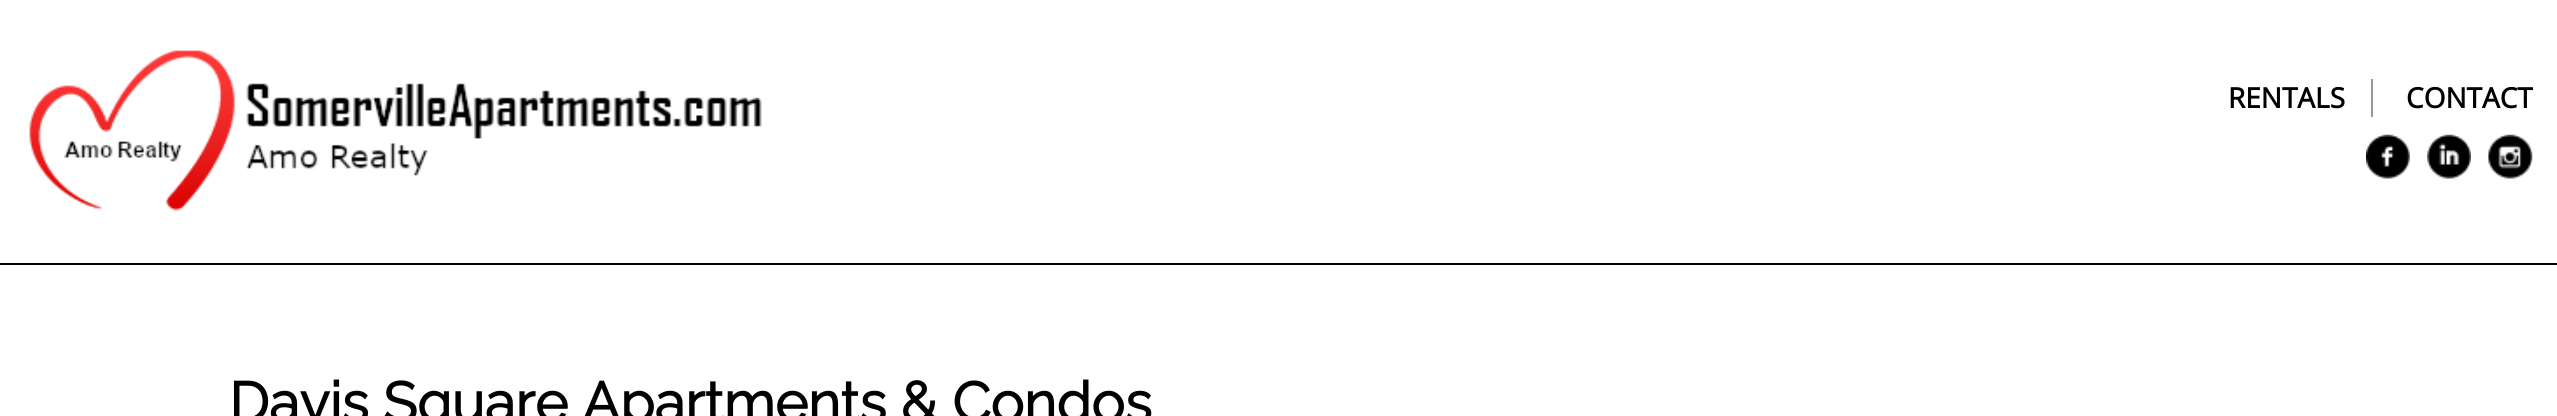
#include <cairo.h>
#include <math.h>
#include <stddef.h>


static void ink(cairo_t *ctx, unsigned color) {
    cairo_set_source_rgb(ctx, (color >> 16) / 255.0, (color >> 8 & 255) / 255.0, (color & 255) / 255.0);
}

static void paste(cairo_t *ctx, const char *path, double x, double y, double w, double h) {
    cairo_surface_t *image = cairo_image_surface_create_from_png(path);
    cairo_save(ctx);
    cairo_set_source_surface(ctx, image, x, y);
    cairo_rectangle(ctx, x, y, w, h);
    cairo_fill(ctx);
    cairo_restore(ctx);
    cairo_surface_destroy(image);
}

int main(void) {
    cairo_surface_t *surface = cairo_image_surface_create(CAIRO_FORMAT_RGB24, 2557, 416);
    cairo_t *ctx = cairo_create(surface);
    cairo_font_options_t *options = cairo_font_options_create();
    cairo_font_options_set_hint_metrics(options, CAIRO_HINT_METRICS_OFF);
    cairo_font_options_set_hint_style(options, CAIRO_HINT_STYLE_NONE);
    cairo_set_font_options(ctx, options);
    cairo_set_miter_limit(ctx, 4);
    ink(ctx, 0xFFFFFF);
    cairo_paint(ctx);
    paste(ctx, "media/1.png", 29, 50, 733, 161);
    cairo_select_font_face(ctx, "Open Sans", CAIRO_FONT_SLANT_NORMAL, CAIRO_FONT_WEIGHT_BOLD);
    cairo_set_font_size(ctx, 28);
    ink(ctx, 0x000000);
    cairo_move_to(ctx, 2228, 108);
    cairo_show_text(ctx, "RENTALS");
    ink(ctx, 0x999999);
    cairo_rectangle(ctx, 2371, 79, 2, 38);
    cairo_fill(ctx);
    ink(ctx, 0x000000);
    cairo_move_to(ctx, 2406, 108);
    cairo_show_text(ctx, "CONTACT");
    paste(ctx, "media/2.png", 2366, 134, 44, 45);
    paste(ctx, "media/3.png", 2427, 134, 44, 45);
    paste(ctx, "media/4.png", 2488, 134, 45, 45);
    cairo_rectangle(ctx, 0, 263, 2557, 2);
    cairo_fill(ctx);
    cairo_select_font_face(ctx, "Raleway", CAIRO_FONT_SLANT_NORMAL, CAIRO_FONT_WEIGHT_BOLD);
    cairo_set_font_size(ctx, 56);
    cairo_move_to(ctx, 229, 422);
    cairo_show_text(ctx, "Davis Square Apartments & Condos");
    cairo_surface_write_to_png(surface, "image.png");
    cairo_font_options_destroy(options);
    cairo_destroy(ctx);
    cairo_surface_destroy(surface);
    return 0;
}
